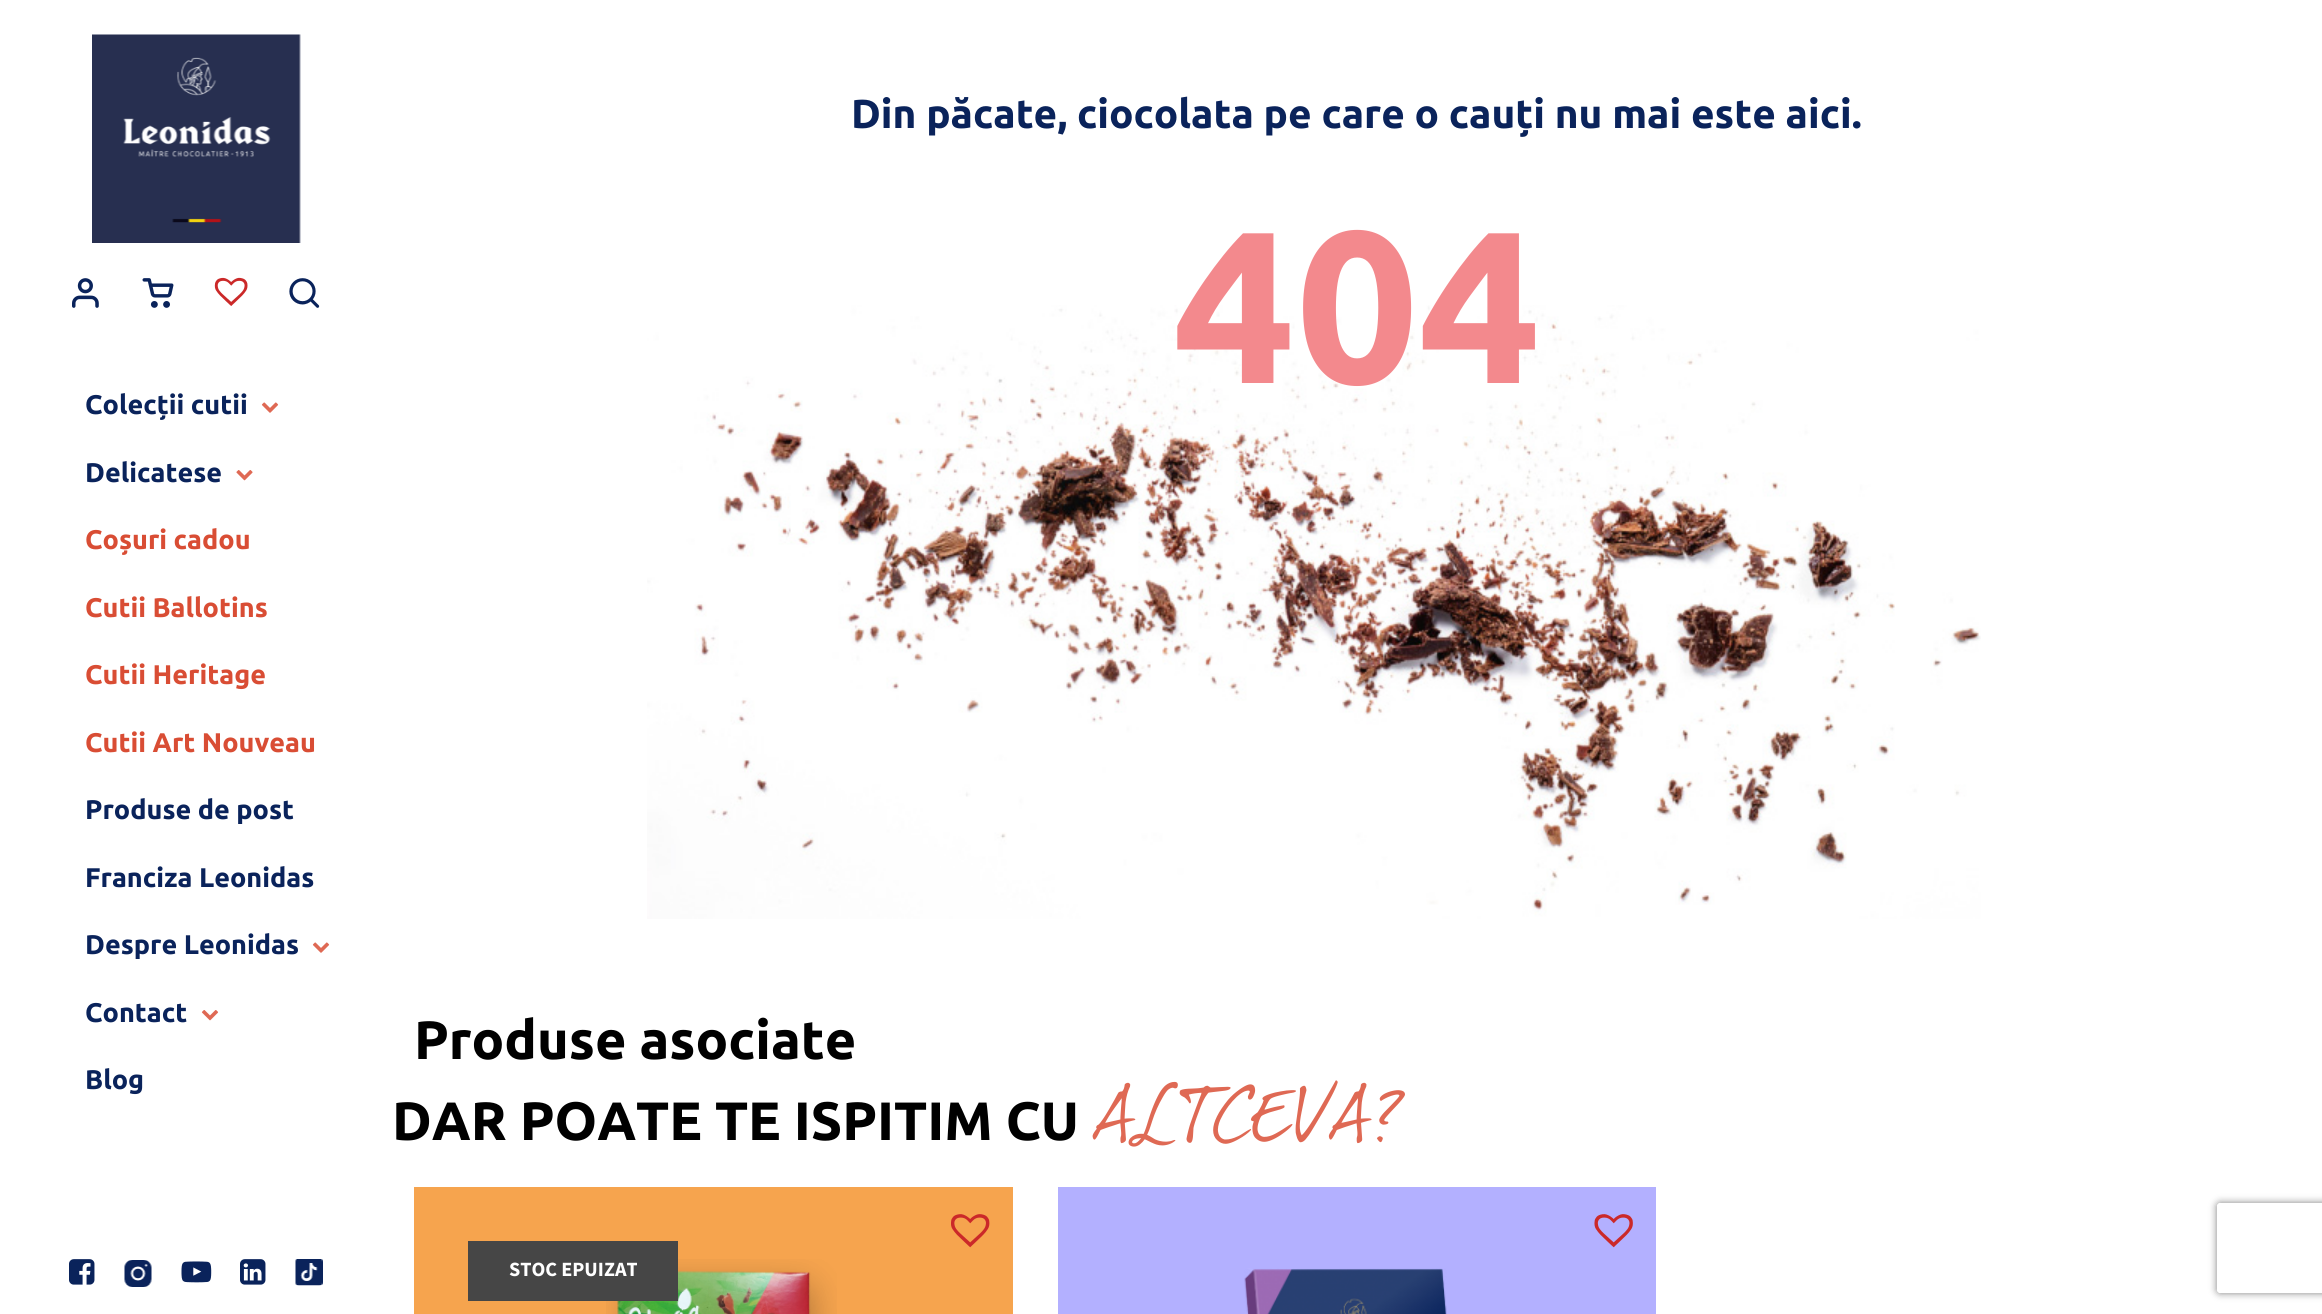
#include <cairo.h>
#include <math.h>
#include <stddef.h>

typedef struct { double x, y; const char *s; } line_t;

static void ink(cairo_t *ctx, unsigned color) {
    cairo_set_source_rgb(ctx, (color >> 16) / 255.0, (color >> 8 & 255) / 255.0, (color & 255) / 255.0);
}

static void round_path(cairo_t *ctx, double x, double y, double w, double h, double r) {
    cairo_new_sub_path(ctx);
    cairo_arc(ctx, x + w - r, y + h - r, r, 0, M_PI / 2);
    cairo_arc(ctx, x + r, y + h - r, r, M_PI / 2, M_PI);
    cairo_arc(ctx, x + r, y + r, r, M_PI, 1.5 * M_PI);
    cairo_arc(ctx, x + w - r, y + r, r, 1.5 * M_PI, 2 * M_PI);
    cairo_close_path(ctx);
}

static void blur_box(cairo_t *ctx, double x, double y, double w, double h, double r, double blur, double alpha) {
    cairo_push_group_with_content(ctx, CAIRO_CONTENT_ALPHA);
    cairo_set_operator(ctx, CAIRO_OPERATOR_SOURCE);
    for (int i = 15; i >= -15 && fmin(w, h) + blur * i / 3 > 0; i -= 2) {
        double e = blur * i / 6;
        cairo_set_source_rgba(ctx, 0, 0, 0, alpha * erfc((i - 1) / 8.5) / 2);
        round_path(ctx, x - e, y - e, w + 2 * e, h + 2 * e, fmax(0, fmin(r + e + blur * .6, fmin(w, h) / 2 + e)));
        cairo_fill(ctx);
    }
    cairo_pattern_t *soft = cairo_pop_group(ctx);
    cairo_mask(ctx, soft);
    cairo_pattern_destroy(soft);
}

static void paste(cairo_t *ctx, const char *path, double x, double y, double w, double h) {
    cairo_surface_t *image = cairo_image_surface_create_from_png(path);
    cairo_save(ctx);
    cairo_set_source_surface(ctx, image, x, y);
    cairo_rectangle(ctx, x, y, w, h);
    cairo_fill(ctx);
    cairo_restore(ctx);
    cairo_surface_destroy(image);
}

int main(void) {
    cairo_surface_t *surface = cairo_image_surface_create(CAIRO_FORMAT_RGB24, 2322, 1314);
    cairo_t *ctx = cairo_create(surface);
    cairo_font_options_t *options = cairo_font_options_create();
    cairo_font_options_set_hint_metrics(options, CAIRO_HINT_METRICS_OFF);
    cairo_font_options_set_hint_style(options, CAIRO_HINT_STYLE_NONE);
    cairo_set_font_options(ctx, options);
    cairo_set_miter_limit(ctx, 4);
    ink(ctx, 0xFFFFFF);
    cairo_paint(ctx);
    cairo_select_font_face(ctx, "Ubuntu", CAIRO_FONT_SLANT_NORMAL, CAIRO_FONT_WEIGHT_BOLD);
    cairo_set_font_size(ctx, 40.5);
    ink(ctx, 0x0A235B);
    cairo_move_to(ctx, 851, 128);
    cairo_show_text(ctx, "Din păcate, ciocolata pe care o cauți nu mai este aici.");
    paste(ctx, "media/1.png", 647, 305, 1334, 614);
    cairo_set_font_size(ctx, 216);
    ink(ctx, 0xF3898D);
    cairo_move_to(ctx, 1173, 383);
    cairo_show_text(ctx, "404");
    paste(ctx, "media/2.png", 92, 34, 209, 209);
    paste(ctx, "media/3.png", 72, 278, 27, 30);
    paste(ctx, "media/4.png", 142, 278, 32, 30);
    paste(ctx, "media/5.png", 214, 277, 34, 29);
    paste(ctx, "media/6.png", 289, 278, 31, 30);
    cairo_set_font_size(ctx, 27);
    ink(ctx, 0x0A235B);
    cairo_move_to(ctx, 85, 414);
    cairo_show_text(ctx, "Colecții cutii");
    paste(ctx, "media/7.png", 261, 402, 18, 11);
    cairo_move_to(ctx, 85, 482);
    cairo_show_text(ctx, "Delicatese");
    paste(ctx, "media/8.png", 236, 470, 17, 11);
    ink(ctx, 0xD94D34);
    {
        static const line_t items[] = {
            {85, 549, "Coșuri cadou"},
            {85, 617, "Cutii Ballotins"},
            {85, 684, "Cutii Heritage"},
            {85, 752, "Cutii Art Nouveau"},
        };
        for (size_t i = 0; i < sizeof items / sizeof *items; i++) {
            cairo_move_to(ctx, items[i].x, items[i].y);
            cairo_show_text(ctx, items[i].s);
        }
    }
    ink(ctx, 0x0A235B);
    {
        static const line_t items[] = {
            {85, 819, "Produse de post"},
            {85, 887, "Franciza Leonidas"},
            {85, 954, "Despre Leonidas"},
        };
        for (size_t i = 0; i < sizeof items / sizeof *items; i++) {
            cairo_move_to(ctx, items[i].x, items[i].y);
            cairo_show_text(ctx, items[i].s);
        }
    }
    paste(ctx, "media/7.png", 312, 942, 18, 11);
    cairo_move_to(ctx, 85, 1022);
    cairo_show_text(ctx, "Contact");
    paste(ctx, "media/9.png", 201, 1010, 18, 11);
    cairo_move_to(ctx, 85, 1089);
    cairo_show_text(ctx, "Blog");
    paste(ctx, "media/10.png", 69, 1259, 26, 26);
    paste(ctx, "media/11.png", 124, 1260, 28, 27);
    paste(ctx, "media/12.png", 181, 1261, 31, 22);
    paste(ctx, "media/13.png", 240, 1259, 26, 26);
    paste(ctx, "media/14.png", 295, 1259, 28, 27);
    cairo_set_font_size(ctx, 54);
    ink(ctx, 0x000000);
    cairo_move_to(ctx, 414, 1059);
    cairo_show_text(ctx, "Produse asociate");
    cairo_move_to(ctx, 392, 1140);
    cairo_show_text(ctx, "DAR POATE TE ISPITIM CU");
    cairo_select_font_face(ctx, "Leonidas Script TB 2", CAIRO_FONT_SLANT_NORMAL, CAIRO_FONT_WEIGHT_NORMAL);
    cairo_set_font_size(ctx, 70);
    ink(ctx, 0xDF6954);
    cairo_move_to(ctx, 1091, 1140);
    cairo_show_text(ctx, "ALTCEVA?");
    ink(ctx, 0xF6A44E);
    cairo_rectangle(ctx, 414, 1187, 599, 127);
    cairo_fill(ctx);
    paste(ctx, "media/15.png", 951, 1214, 39, 34);
    paste(ctx, "media/16.png", 606, 1259, 231, 55);
    ink(ctx, 0x464646);
    cairo_rectangle(ctx, 468, 1241, 210, 60);
    cairo_fill(ctx);
    cairo_select_font_face(ctx, "Source Sans Pro", CAIRO_FONT_SLANT_NORMAL, CAIRO_FONT_WEIGHT_BOLD);
    cairo_set_font_size(ctx, 20.25);
    ink(ctx, 0xFFFFFF);
    cairo_move_to(ctx, 509, 1276);
    cairo_show_text(ctx, "STOC EPUIZAT");
    ink(ctx, 0xB3B0FF);
    cairo_rectangle(ctx, 1058, 1187, 598, 127);
    cairo_fill(ctx);
    paste(ctx, "media/17.png", 1244, 1268, 203, 46);
    paste(ctx, "media/18.png", 1594, 1214, 39, 34);
    cairo_save(ctx);
    cairo_set_fill_rule(ctx, CAIRO_FILL_RULE_EVEN_ODD);
    cairo_new_path(ctx);
    cairo_move_to(ctx, 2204, 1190);
    cairo_line_to(ctx, 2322, 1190);
    cairo_line_to(ctx, 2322, 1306);
    cairo_line_to(ctx, 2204, 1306);
    cairo_close_path(ctx);
    cairo_move_to(ctx, 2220, 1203);
    cairo_line_to(ctx, 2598, 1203);
    cairo_curve_to(ctx, 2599.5, 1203, 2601, 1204.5, 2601, 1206);
    cairo_line_to(ctx, 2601, 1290);
    cairo_curve_to(ctx, 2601, 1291.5, 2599.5, 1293, 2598, 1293);
    cairo_line_to(ctx, 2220, 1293);
    cairo_curve_to(ctx, 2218.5, 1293, 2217, 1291.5, 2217, 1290);
    cairo_line_to(ctx, 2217, 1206);
    cairo_curve_to(ctx, 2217, 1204.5, 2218.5, 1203, 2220, 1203);
    cairo_close_path(ctx);
    cairo_clip(ctx);
    ink(ctx, 0x808080);
    blur_box(ctx, 2217, 1203, 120, 90, 3, 4, 1);
    cairo_restore(ctx);
    cairo_surface_write_to_png(surface, "image.png");
    cairo_font_options_destroy(options);
    cairo_destroy(ctx);
    cairo_surface_destroy(surface);
    return 0;
}
